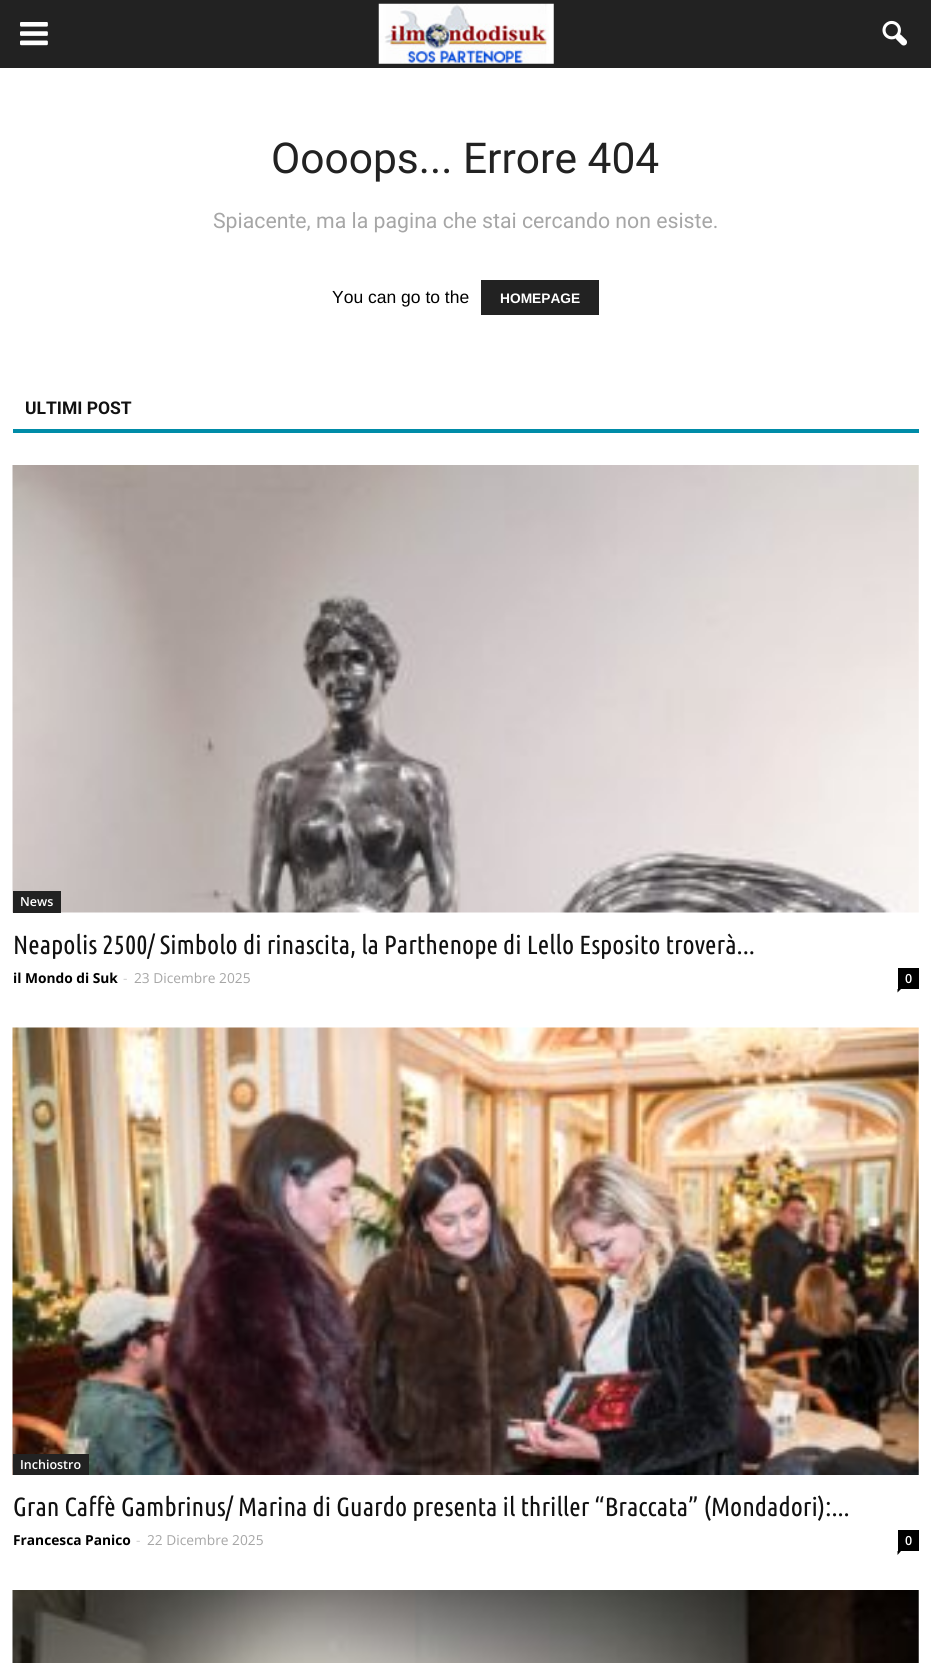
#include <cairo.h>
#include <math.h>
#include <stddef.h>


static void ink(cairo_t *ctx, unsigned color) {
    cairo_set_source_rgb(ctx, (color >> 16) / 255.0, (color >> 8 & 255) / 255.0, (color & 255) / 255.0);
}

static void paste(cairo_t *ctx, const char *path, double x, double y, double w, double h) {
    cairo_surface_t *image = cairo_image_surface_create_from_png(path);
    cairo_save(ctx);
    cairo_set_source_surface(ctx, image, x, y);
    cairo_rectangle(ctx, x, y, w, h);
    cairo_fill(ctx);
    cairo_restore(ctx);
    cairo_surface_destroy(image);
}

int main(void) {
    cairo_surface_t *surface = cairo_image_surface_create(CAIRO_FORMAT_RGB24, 931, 1663);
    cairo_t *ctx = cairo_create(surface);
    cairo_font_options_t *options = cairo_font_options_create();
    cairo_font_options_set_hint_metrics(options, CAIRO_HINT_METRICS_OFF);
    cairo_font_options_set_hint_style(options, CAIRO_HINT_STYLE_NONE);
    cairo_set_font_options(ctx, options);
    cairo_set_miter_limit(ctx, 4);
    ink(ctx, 0xFFFFFF);
    cairo_paint(ctx);
    ink(ctx, 0x222222);
    cairo_rectangle(ctx, 0, 0, 931, 68);
    cairo_fill(ctx);
    paste(ctx, "media/1.png", 20, 22, 28, 24);
    paste(ctx, "media/2.png", 378, 3, 176, 61);
    paste(ctx, "media/3.png", 882, 20, 25, 26);
    cairo_select_font_face(ctx, "Roboto", CAIRO_FONT_SLANT_NORMAL, CAIRO_FONT_WEIGHT_NORMAL);
    cairo_set_font_size(ctx, 42.5);
    cairo_move_to(ctx, 271, 173);
    cairo_show_text(ctx, "Oooops... Errore 404");
    cairo_set_font_size(ctx, 21.25);
    ink(ctx, 0xA6A6A6);
    cairo_move_to(ctx, 213, 228);
    cairo_show_text(ctx, "Spiacente, ma la pagina che stai cercando non esiste.");
    cairo_select_font_face(ctx, "Liberation Sans", CAIRO_FONT_SLANT_NORMAL, CAIRO_FONT_WEIGHT_NORMAL);
    cairo_set_font_size(ctx, 17.5);
    ink(ctx, 0x000000);
    cairo_move_to(ctx, 332, 303);
    cairo_show_text(ctx, "You can go to the");
    ink(ctx, 0x222222);
    cairo_rectangle(ctx, 481, 280, 118, 35);
    cairo_fill(ctx);
    cairo_select_font_face(ctx, "Liberation Sans", CAIRO_FONT_SLANT_NORMAL, CAIRO_FONT_WEIGHT_BOLD);
    cairo_set_font_size(ctx, 13.75);
    ink(ctx, 0xFFFFFF);
    cairo_move_to(ctx, 500, 303);
    cairo_show_text(ctx, "HOMEPAGE");
    ink(ctx, 0x008CA8);
    cairo_rectangle(ctx, 13, 429, 906, 4);
    cairo_fill(ctx);
    cairo_select_font_face(ctx, "Roboto", CAIRO_FONT_SLANT_NORMAL, CAIRO_FONT_WEIGHT_BOLD);
    cairo_set_font_size(ctx, 17.5);
    ink(ctx, 0x111111);
    cairo_move_to(ctx, 25, 414);
    cairo_show_text(ctx, "ULTIMI POST");
    paste(ctx, "media/4.png", 12, 465, 907, 448);
    ink(ctx, 0x222222);
    cairo_rectangle(ctx, 13, 891, 48, 22);
    cairo_fill(ctx);
    cairo_select_font_face(ctx, "Open Sans SemiBold", CAIRO_FONT_SLANT_NORMAL, CAIRO_FONT_WEIGHT_NORMAL);
    cairo_set_font_size(ctx, 12.5);
    ink(ctx, 0xFFFFFF);
    cairo_move_to(ctx, 20, 906);
    cairo_show_text(ctx, "News");
    cairo_select_font_face(ctx, "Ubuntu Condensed", CAIRO_FONT_SLANT_NORMAL, CAIRO_FONT_WEIGHT_NORMAL);
    cairo_set_font_size(ctx, 26.25);
    ink(ctx, 0x111111);
    cairo_move_to(ctx, 13, 954);
    cairo_show_text(ctx, "Neapolis 2500/ Simbolo di rinascita, la Parthenope di Lello Esposito troverà...");
    cairo_select_font_face(ctx, "Open Sans", CAIRO_FONT_SLANT_NORMAL, CAIRO_FONT_WEIGHT_BOLD);
    cairo_set_font_size(ctx, 13.75);
    ink(ctx, 0x000000);
    cairo_move_to(ctx, 13, 983);
    cairo_show_text(ctx, "il Mondo di Suk");
    cairo_select_font_face(ctx, "Open Sans", CAIRO_FONT_SLANT_NORMAL, CAIRO_FONT_WEIGHT_NORMAL);
    ink(ctx, 0xCCCCCC);
    cairo_move_to(ctx, 123, 983);
    cairo_show_text(ctx, "-");
    ink(ctx, 0xA6A6A6);
    cairo_move_to(ctx, 134, 983);
    cairo_show_text(ctx, "23 Dicembre 2025");
    ink(ctx, 0x000000);
    cairo_rectangle(ctx, 898, 968, 21, 21);
    cairo_fill(ctx);
    cairo_select_font_face(ctx, "Open Sans SemiBold", CAIRO_FONT_SLANT_NORMAL, CAIRO_FONT_WEIGHT_NORMAL);
    cairo_set_font_size(ctx, 12.5);
    ink(ctx, 0xFFFFFF);
    cairo_move_to(ctx, 905, 983);
    cairo_show_text(ctx, "0");
    ink(ctx, 0x000000);
    cairo_new_path(ctx);
    cairo_move_to(ctx, 897.5, 989);
    cairo_line_to(ctx, 901, 989);
    cairo_line_to(ctx, 897.5, 992.5);
    cairo_close_path(ctx);
    cairo_fill(ctx);
    paste(ctx, "media/5.png", 12, 1027, 907, 448);
    ink(ctx, 0x222222);
    cairo_rectangle(ctx, 13, 1454, 76, 21);
    cairo_fill(ctx);
    ink(ctx, 0xFFFFFF);
    cairo_move_to(ctx, 20, 1469);
    cairo_show_text(ctx, "Inchiostro");
    cairo_select_font_face(ctx, "Ubuntu Condensed", CAIRO_FONT_SLANT_NORMAL, CAIRO_FONT_WEIGHT_NORMAL);
    cairo_set_font_size(ctx, 26.25);
    ink(ctx, 0x111111);
    cairo_move_to(ctx, 13, 1516);
    cairo_show_text(ctx, "Gran Caffè Gambrinus/ Marina di Guardo presenta il thriller “Braccata” (Mondadori):...");
    cairo_select_font_face(ctx, "Open Sans", CAIRO_FONT_SLANT_NORMAL, CAIRO_FONT_WEIGHT_BOLD);
    cairo_set_font_size(ctx, 13.75);
    ink(ctx, 0x000000);
    cairo_move_to(ctx, 13, 1545);
    cairo_show_text(ctx, "Francesca Panico");
    cairo_select_font_face(ctx, "Open Sans", CAIRO_FONT_SLANT_NORMAL, CAIRO_FONT_WEIGHT_NORMAL);
    ink(ctx, 0xCCCCCC);
    cairo_move_to(ctx, 136, 1545);
    cairo_show_text(ctx, "-");
    ink(ctx, 0xA6A6A6);
    cairo_move_to(ctx, 147, 1545);
    cairo_show_text(ctx, "22 Dicembre 2025");
    ink(ctx, 0x000000);
    cairo_rectangle(ctx, 898, 1530, 21, 21);
    cairo_fill(ctx);
    cairo_select_font_face(ctx, "Open Sans SemiBold", CAIRO_FONT_SLANT_NORMAL, CAIRO_FONT_WEIGHT_NORMAL);
    cairo_set_font_size(ctx, 12.5);
    ink(ctx, 0xFFFFFF);
    cairo_move_to(ctx, 905, 1545);
    cairo_show_text(ctx, "0");
    ink(ctx, 0x000000);
    cairo_new_path(ctx);
    cairo_move_to(ctx, 897.5, 1551);
    cairo_line_to(ctx, 901, 1551);
    cairo_line_to(ctx, 897.5, 1555);
    cairo_close_path(ctx);
    cairo_fill(ctx);
    paste(ctx, "media/6.png", 12, 1590, 907, 73);
    cairo_surface_write_to_png(surface, "image.png");
    cairo_font_options_destroy(options);
    cairo_destroy(ctx);
    cairo_surface_destroy(surface);
    return 0;
}
